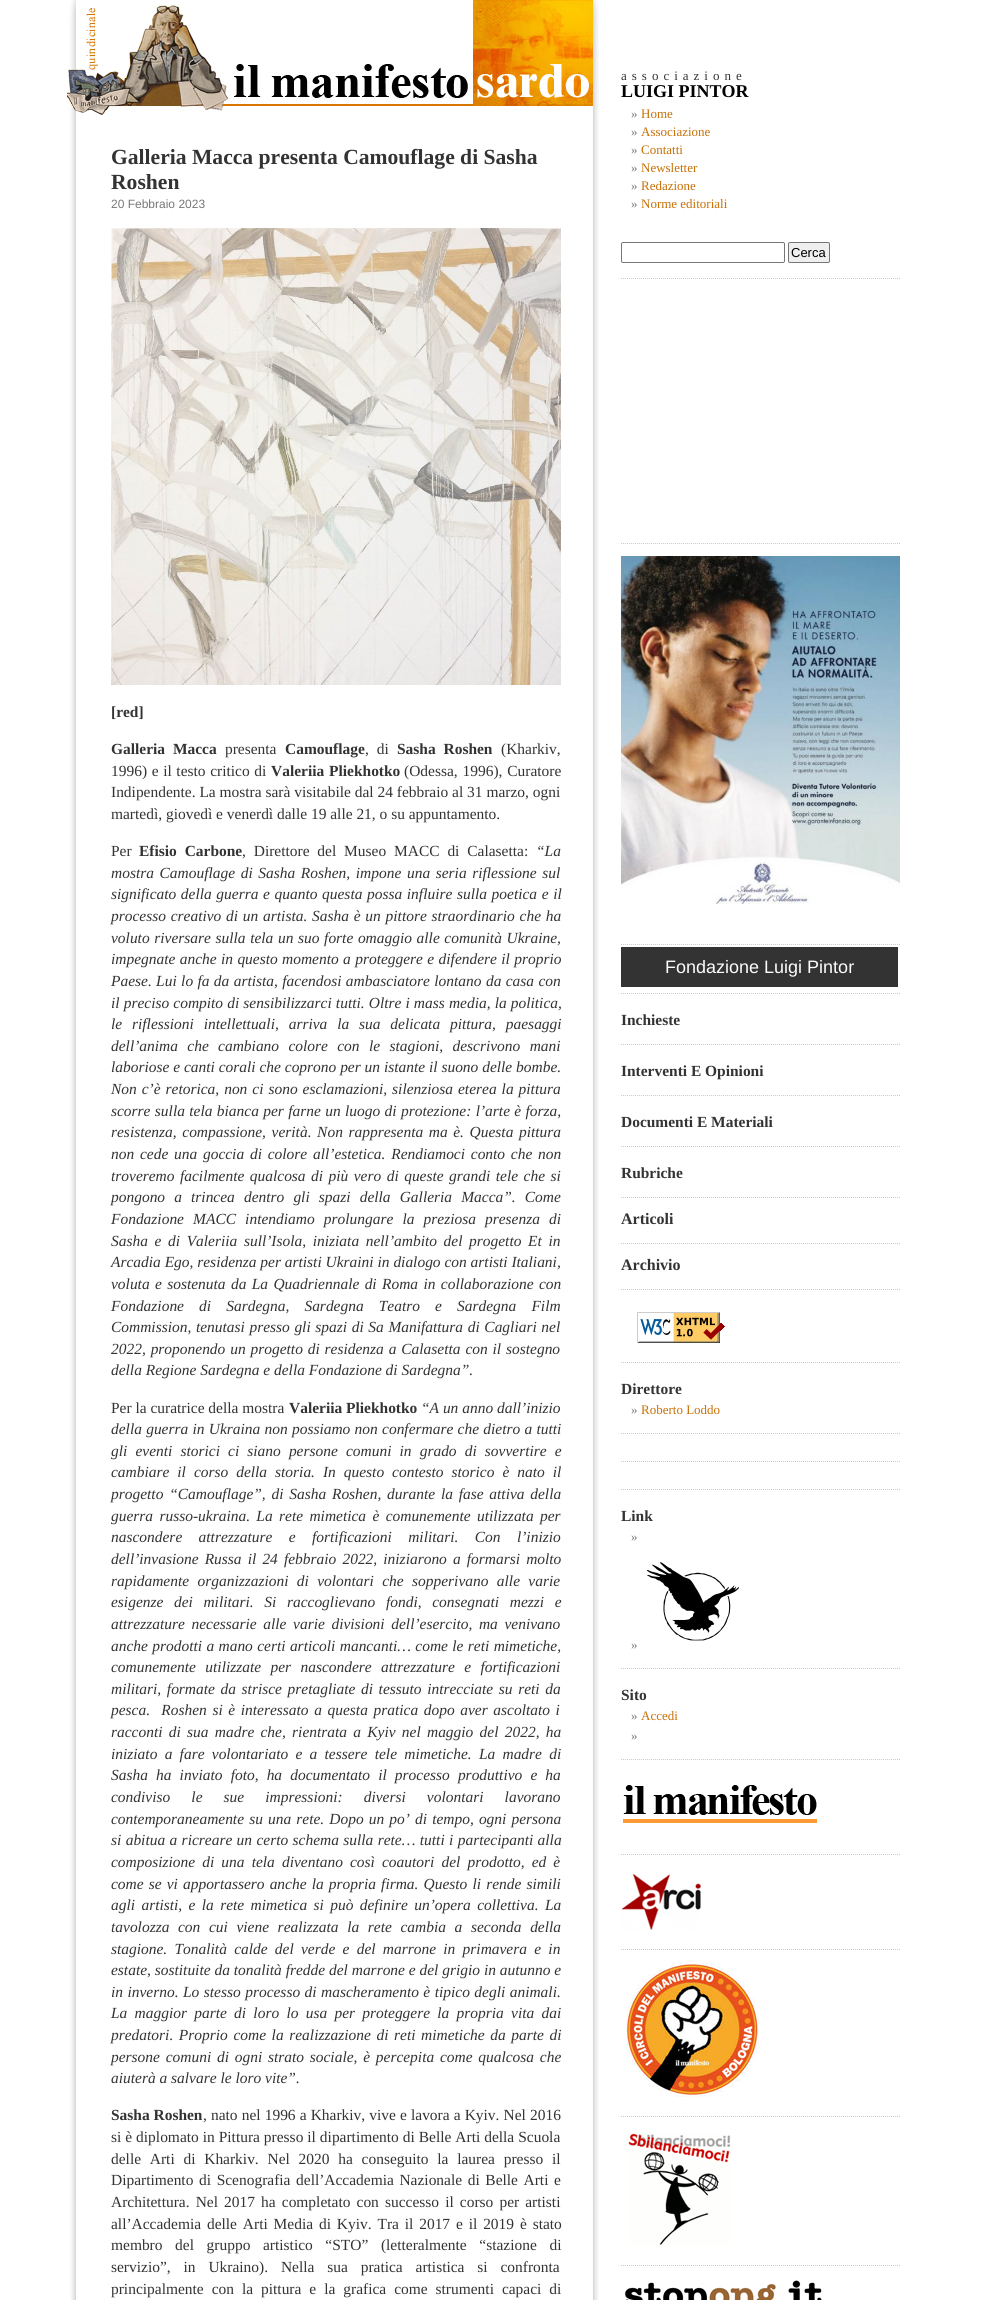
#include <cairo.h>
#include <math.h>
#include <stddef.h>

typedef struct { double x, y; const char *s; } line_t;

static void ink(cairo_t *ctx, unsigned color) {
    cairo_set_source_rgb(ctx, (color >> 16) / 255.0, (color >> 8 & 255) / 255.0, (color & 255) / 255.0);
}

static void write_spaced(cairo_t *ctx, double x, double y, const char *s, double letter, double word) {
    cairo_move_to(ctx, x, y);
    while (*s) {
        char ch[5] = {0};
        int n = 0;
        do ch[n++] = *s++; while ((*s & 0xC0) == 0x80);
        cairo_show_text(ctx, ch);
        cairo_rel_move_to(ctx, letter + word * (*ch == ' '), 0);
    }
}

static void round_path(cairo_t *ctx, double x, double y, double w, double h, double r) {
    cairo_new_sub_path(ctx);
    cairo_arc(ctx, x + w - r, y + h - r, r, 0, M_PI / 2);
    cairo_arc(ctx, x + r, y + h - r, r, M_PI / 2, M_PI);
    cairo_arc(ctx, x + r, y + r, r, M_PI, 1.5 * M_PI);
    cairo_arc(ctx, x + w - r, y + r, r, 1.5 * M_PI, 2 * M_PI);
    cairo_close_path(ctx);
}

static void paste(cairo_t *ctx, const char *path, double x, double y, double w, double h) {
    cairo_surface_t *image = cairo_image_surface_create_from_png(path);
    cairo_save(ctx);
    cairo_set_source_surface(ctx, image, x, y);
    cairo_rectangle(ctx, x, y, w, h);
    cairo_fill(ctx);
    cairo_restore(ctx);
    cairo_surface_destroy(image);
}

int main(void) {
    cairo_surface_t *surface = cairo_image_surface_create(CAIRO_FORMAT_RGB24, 982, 2300);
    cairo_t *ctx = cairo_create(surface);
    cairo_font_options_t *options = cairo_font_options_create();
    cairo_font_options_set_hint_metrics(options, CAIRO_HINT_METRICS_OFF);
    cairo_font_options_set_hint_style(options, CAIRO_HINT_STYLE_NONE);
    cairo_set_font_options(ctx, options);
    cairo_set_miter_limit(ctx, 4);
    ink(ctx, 0xFFFFFF);
    cairo_paint(ctx);
    paste(ctx, "media/1.png", 70, 115, 529, 2185);
    paste(ctx, "media/2.png", 67, 0, 532, 115);
    cairo_select_font_face(ctx, "Liberation Serif", CAIRO_FONT_SLANT_NORMAL, CAIRO_FONT_WEIGHT_BOLD);
    cairo_set_font_size(ctx, 21.6);
    ink(ctx, 0x333333);
    cairo_move_to(ctx, 111, 164);
    cairo_show_text(ctx, "Galleria Macca presenta Camouflage di Sasha");
    cairo_move_to(ctx, 111, 189);
    cairo_show_text(ctx, "Roshen");
    cairo_select_font_face(ctx, "Liberation Sans", CAIRO_FONT_SLANT_NORMAL, CAIRO_FONT_WEIGHT_NORMAL);
    cairo_set_font_size(ctx, 12);
    ink(ctx, 0x777777);
    cairo_move_to(ctx, 111, 208);
    cairo_show_text(ctx, "20 Febbraio 2023");
    paste(ctx, "media/3.png", 111, 228, 450, 457);
    cairo_select_font_face(ctx, "Liberation Serif", CAIRO_FONT_SLANT_NORMAL, CAIRO_FONT_WEIGHT_BOLD);
    cairo_set_font_size(ctx, 15.45);
    ink(ctx, 0x333333);
    cairo_move_to(ctx, 111, 717);
    cairo_show_text(ctx, "[red]");
    write_spaced(ctx, 111, 754, "Galleria Macca", 0, 4);
    cairo_select_font_face(ctx, "Liberation Serif", CAIRO_FONT_SLANT_NORMAL, CAIRO_FONT_WEIGHT_NORMAL);
    cairo_move_to(ctx, 225, 754);
    cairo_show_text(ctx, "presenta");
    cairo_select_font_face(ctx, "Liberation Serif", CAIRO_FONT_SLANT_NORMAL, CAIRO_FONT_WEIGHT_BOLD);
    cairo_move_to(ctx, 285, 754);
    cairo_show_text(ctx, "Camouflage");
    cairo_select_font_face(ctx, "Liberation Serif", CAIRO_FONT_SLANT_NORMAL, CAIRO_FONT_WEIGHT_NORMAL);
    write_spaced(ctx, 365, 754, ", di", 0, 4);
    cairo_select_font_face(ctx, "Liberation Serif", CAIRO_FONT_SLANT_NORMAL, CAIRO_FONT_WEIGHT_BOLD);
    write_spaced(ctx, 397, 754, "Sasha Roshen", 0, 4);
    cairo_select_font_face(ctx, "Liberation Serif", CAIRO_FONT_SLANT_NORMAL, CAIRO_FONT_WEIGHT_NORMAL);
    cairo_move_to(ctx, 501, 754);
    cairo_show_text(ctx, "(Kharkiv,");
    write_spaced(ctx, 111, 776, "1996) e il testo critico di", 0, 0.75);
    cairo_select_font_face(ctx, "Liberation Serif", CAIRO_FONT_SLANT_NORMAL, CAIRO_FONT_WEIGHT_BOLD);
    write_spaced(ctx, 271, 776, "Valeriia Pliekhotko", 0, 1);
    cairo_select_font_face(ctx, "Liberation Serif", CAIRO_FONT_SLANT_NORMAL, CAIRO_FONT_WEIGHT_NORMAL);
    write_spaced(ctx, 404, 776, "(Odessa, 1996), Curatore", 0, 1);
    {
        static const line_t items[] = {
            {111, 797, "Indipendente. La mostra sarà visitabile dal 24 febbraio al 31 marzo, ogni"},
            {111, 819, "martedì, giovedì e venerdì dalle 19 alle 21, o su appuntamento."},
            {111, 856, "Per"},
        };
        for (size_t i = 0; i < sizeof items / sizeof *items; i++) {
            cairo_move_to(ctx, items[i].x, items[i].y);
            cairo_show_text(ctx, items[i].s);
        }
    }
    cairo_select_font_face(ctx, "Liberation Serif", CAIRO_FONT_SLANT_NORMAL, CAIRO_FONT_WEIGHT_BOLD);
    write_spaced(ctx, 139, 856, "Efisio Carbone", 0, 4);
    cairo_select_font_face(ctx, "Liberation Serif", CAIRO_FONT_SLANT_NORMAL, CAIRO_FONT_WEIGHT_NORMAL);
    write_spaced(ctx, 242, 856, ", Direttore del Museo MACC di Calasetta:", 0, 4);
    cairo_select_font_face(ctx, "Liberation Serif", CAIRO_FONT_SLANT_ITALIC, CAIRO_FONT_WEIGHT_NORMAL);
    cairo_move_to(ctx, 536, 856);
    cairo_show_text(ctx, "“La");
    write_spaced(ctx, 111, 878, "mostra Camouflage di Sasha Roshen, impone una seria riflessione sul", 0, 1.75);
    write_spaced(ctx, 111, 899, "significato della guerra e quanto questa possa influire sulla poetica e il", 0, 0.75);
    write_spaced(ctx, 111, 921, "processo creativo di un artista. Sasha è un pittore straordinario che ha", 0, 0.9);
    write_spaced(ctx, 111, 943, "voluto riversare sulla tela un suo forte omaggio alle comunità Ukraine,", 0, 0.75);
    write_spaced(ctx, 111, 964, "impegnate anche in questo momento a proteggere e difendere il proprio", 0, 0.5);
    write_spaced(ctx, 111, 986, "Paese. Lui lo fa da artista, facendosi ambasciatore lontano da casa con", 0, 0.5);
    write_spaced(ctx, 111, 1008, "il preciso compito di sensibilizzarci tutti. Oltre i mass media, la politica,", 0, 0.25);
    write_spaced(ctx, 111, 1029, "le riflessioni intellettuali, arriva la sua delicata pittura, paesaggi", 0, 6);
    write_spaced(ctx, 111, 1051, "dell’anima che cambiano colore con le stagioni, descrivono mani", 0, 5.5);
    cairo_move_to(ctx, 111, 1072);
    cairo_show_text(ctx, "laboriose e canti corali che coprono per un istante il suono delle bombe.");
    write_spaced(ctx, 111, 1094, "Non c’è retorica, non ci sono esclamazioni, silenziosa eterea la pittura", 0, 1.1);
    write_spaced(ctx, 111, 1116, "scorre sulla tela bianca per farne un luogo di protezione: l’arte è forza,", 0, 0.5);
    write_spaced(ctx, 111, 1137, "resistenza, compassione, verità. Non rappresenta ma è. Questa pittura", 0, 1.75);
    write_spaced(ctx, 111, 1159, "non cede una goccia di colore all’estetica. Rendiamoci conto che non", 0, 1.9);
    write_spaced(ctx, 111, 1181, "troveremo facilmente qualcosa di più vero di queste grandi tele che si", 0, 1.6);
    write_spaced(ctx, 111, 1202, "pongono a trincea dentro gli spazi della Galleria Macca”. Come", 0, 5.25);
    write_spaced(ctx, 111, 1224, "Fondazione MACC intendiamo prolungare la preziosa presenza di", 0, 5.25);
    write_spaced(ctx, 111, 1246, "Sasha e di Valeriia sull’Isola, iniziata nell’ambito del progetto Et in", 0, 2.75);
    cairo_move_to(ctx, 111, 1267);
    cairo_show_text(ctx, "Arcadia Ego, residenza per artisti Ukraini in dialogo con artisti Italiani,");
    write_spaced(ctx, 111, 1289, "voluta e sostenuta da La Quadriennale di Roma in collaborazione con", 0, 1.5);
    write_spaced(ctx, 111, 1311, "Fondazione di Sardegna, Sardegna Teatro e Sardegna Film", 0, 11.25);
    write_spaced(ctx, 111, 1332, "Commission, tenutasi presso gli spazi di Sa Manifattura di Cagliari nel", 0, 0.75);
    write_spaced(ctx, 111, 1354, "2022, proponendo un progetto di residenza a Calasetta con il sostegno", 0, 1);
    cairo_move_to(ctx, 111, 1375);
    cairo_show_text(ctx, "della Regione Sardegna e della Fondazione di Sardegna”.");
    cairo_select_font_face(ctx, "Liberation Serif", CAIRO_FONT_SLANT_NORMAL, CAIRO_FONT_WEIGHT_NORMAL);
    cairo_move_to(ctx, 111, 1413);
    cairo_show_text(ctx, "Per la curatrice della mostra");
    cairo_select_font_face(ctx, "Liberation Serif", CAIRO_FONT_SLANT_NORMAL, CAIRO_FONT_WEIGHT_BOLD);
    cairo_move_to(ctx, 289, 1413);
    cairo_show_text(ctx, "Valeriia Pliekhotko");
    cairo_select_font_face(ctx, "Liberation Serif", CAIRO_FONT_SLANT_ITALIC, CAIRO_FONT_WEIGHT_NORMAL);
    cairo_move_to(ctx, 421, 1413);
    cairo_show_text(ctx, "“A un anno dall’inizio");
    write_spaced(ctx, 111, 1434, "della guerra in Ukraina non possiamo non confermare che dietro a tutti", 0, 0.4);
    write_spaced(ctx, 111, 1456, "gli eventi storici ci siano persone comuni in grado di sovvertire e", 0, 4.25);
    write_spaced(ctx, 111, 1477, "cambiare il corso della storia. In questo contesto storico è nato il", 0, 4.1);
    write_spaced(ctx, 111, 1499, "progetto “Camouflage”, di Sasha Roshen, durante la fase attiva della", 0, 1.9);
    write_spaced(ctx, 111, 1521, "guerra russo-ukraina. La rete mimetica è comunemente utilizzata per", 0, 2.5);
    write_spaced(ctx, 111, 1542, "nascondere attrezzature e fortificazioni militari. Con l’inizio", 0, 12.5);
    write_spaced(ctx, 111, 1564, "dell’invasione Russa il 24 febbraio 2022, iniziarono a formarsi molto", 0, 2.25);
    write_spaced(ctx, 111, 1586, "rapidamente organizzazioni di volontari che sopperivano alle varie", 0, 4.5);
    write_spaced(ctx, 111, 1607, "esigenze dei militari. Si raccoglievano fondi, consegnati mezzi e", 0, 6.75);
    write_spaced(ctx, 111, 1629, "attrezzature necessarie alle varie divisioni dell’esercito, ma venivano", 0, 2.75);
    write_spaced(ctx, 111, 1651, "anche prodotti a mano certi articoli mancanti… come le reti mimetiche,", 0, 0.5);
    write_spaced(ctx, 111, 1672, "comunemente utilizzate per nascondere attrezzature e fortificazioni", 0, 5.5);
    write_spaced(ctx, 111, 1694, "militari, formate da strisce pretagliate di tessuto intrecciate su reti da", 0, 1.75);
    write_spaced(ctx, 111, 1715, "pesca.  Roshen si è interessato a questa pratica dopo aver ascoltato i", 0, 1.75);
    write_spaced(ctx, 111, 1737, "racconti di sua madre che, rientrata a Kyiv nel maggio del 2022, ha", 0, 2.4);
    write_spaced(ctx, 111, 1759, "iniziato a fare volontariato e a tessere tele mimetiche. La madre di", 0, 3.4);
    write_spaced(ctx, 111, 1780, "Sasha ha inviato foto, ha documentato il processo produttivo e ha", 0, 4.25);
    write_spaced(ctx, 111, 1802, "condiviso le sue impressioni: diversi volontari lavorano", 0, 17.25);
    write_spaced(ctx, 111, 1824, "contemporaneamente su una rete. Dopo un po’ di tempo, ogni persona", 0, 1.25);
    write_spaced(ctx, 111, 1845, "si abitua a ricreare un certo schema sulla rete… tutti i partecipanti alla", 0, 0.5);
    write_spaced(ctx, 111, 1867, "composizione di una tela diventano così coautori del prodotto, ed è", 0, 3.25);
    write_spaced(ctx, 111, 1889, "come se vi apportassero anche la propria firma. Questo li rende simili", 0, 1.25);
    write_spaced(ctx, 111, 1910, "agli artisti, e la rete mimetica si può definire un’opera collettiva. La", 0, 2.5);
    write_spaced(ctx, 111, 1932, "tavolozza con cui viene realizzata la rete cambia a seconda della", 0, 4.75);
    write_spaced(ctx, 111, 1954, "stagione. Tonalità calde del verde e del marrone in primavera e in", 0, 3.4);
    cairo_move_to(ctx, 111, 1975);
    cairo_show_text(ctx, "estate, sostituite da tonalità fredde del marrone e del grigio in autunno e");
    write_spaced(ctx, 111, 1997, "in inverno. Lo stesso processo di mascheramento è tipico degli animali.", 0, 0.6);
    write_spaced(ctx, 111, 2018, "La maggior parte di loro lo usa per proteggere la propria vita dai", 0, 3.4);
    write_spaced(ctx, 111, 2040, "predatori. Proprio come la realizzazione di reti mimetiche da parte di", 0, 1.75);
    write_spaced(ctx, 111, 2062, "persone comuni di ogni strato sociale, è percepita come qualcosa che", 0, 1.9);
    cairo_move_to(ctx, 111, 2083);
    cairo_show_text(ctx, "aiuterà a salvare le loro vite”.");
    cairo_select_font_face(ctx, "Liberation Serif", CAIRO_FONT_SLANT_NORMAL, CAIRO_FONT_WEIGHT_BOLD);
    cairo_move_to(ctx, 111, 2120);
    cairo_show_text(ctx, "Sasha Roshen");
    cairo_select_font_face(ctx, "Liberation Serif", CAIRO_FONT_SLANT_NORMAL, CAIRO_FONT_WEIGHT_NORMAL);
    write_spaced(ctx, 203, 2120, ", nato nel 1996 a Kharkiv, vive e lavora a Kyiv. Nel 2016", 0, 0.25);
    write_spaced(ctx, 111, 2142, "si è diplomato in Pittura presso il dipartimento di Belle Arti della Scuola", 0, 0.1);
    write_spaced(ctx, 111, 2164, "delle Arti di Kharkiv. Nel 2020 ha conseguito la laurea presso il", 0, 4.9);
    write_spaced(ctx, 111, 2185, "Dipartimento di Scenografia dell’Accademia Nazionale di Belle Arti e", 0, 1.75);
    write_spaced(ctx, 111, 2207, "Architettura. Nel 2017 ha completato con successo il corso per artisti", 0, 2.25);
    write_spaced(ctx, 111, 2229, "all’Accademia delle Arti Media di Kyiv. Tra il 2017 e il 2019 è stato", 0, 2);
    write_spaced(ctx, 111, 2250, "membro del gruppo artistico “STO” (letteralmente “stazione di", 0, 8.75);
    write_spaced(ctx, 111, 2272, "servizio”, in Ukraino). Nella sua pratica artistica si confronta", 0, 9);
    write_spaced(ctx, 111, 2294, "principalmente con la pittura e la grafica come strumenti capaci di", 0, 4.1);
    cairo_set_font_size(ctx, 13);
    write_spaced(ctx, 621, 80, "associazione", 5, 0);
    cairo_select_font_face(ctx, "Liberation Serif", CAIRO_FONT_SLANT_NORMAL, CAIRO_FONT_WEIGHT_BOLD);
    cairo_set_font_size(ctx, 18);
    ink(ctx, 0x000000);
    cairo_move_to(ctx, 621, 97);
    cairo_show_text(ctx, "LUIGI PINTOR");
    cairo_select_font_face(ctx, "Liberation Serif", CAIRO_FONT_SLANT_NORMAL, CAIRO_FONT_WEIGHT_NORMAL);
    cairo_set_font_size(ctx, 13);
    ink(ctx, 0x777777);
    cairo_move_to(ctx, 631, 118);
    cairo_show_text(ctx, "»");
    ink(ctx, 0xC77005);
    cairo_move_to(ctx, 641, 118);
    cairo_show_text(ctx, "Home");
    ink(ctx, 0x777777);
    cairo_move_to(ctx, 631, 136);
    cairo_show_text(ctx, "»");
    ink(ctx, 0xC77005);
    cairo_move_to(ctx, 641, 136);
    cairo_show_text(ctx, "Associazione");
    ink(ctx, 0x777777);
    cairo_move_to(ctx, 631, 154);
    cairo_show_text(ctx, "»");
    ink(ctx, 0xC77005);
    cairo_move_to(ctx, 641, 154);
    cairo_show_text(ctx, "Contatti");
    ink(ctx, 0x777777);
    cairo_move_to(ctx, 631, 172);
    cairo_show_text(ctx, "»");
    ink(ctx, 0xC77005);
    cairo_move_to(ctx, 641, 172);
    cairo_show_text(ctx, "Newsletter");
    ink(ctx, 0x777777);
    cairo_move_to(ctx, 631, 190);
    cairo_show_text(ctx, "»");
    ink(ctx, 0xC77005);
    cairo_move_to(ctx, 641, 190);
    cairo_show_text(ctx, "Redazione");
    ink(ctx, 0x777777);
    cairo_move_to(ctx, 631, 208);
    cairo_show_text(ctx, "»");
    ink(ctx, 0xC77005);
    cairo_move_to(ctx, 641, 208);
    cairo_show_text(ctx, "Norme editoriali");
    round_path(ctx, 621.5, 242.5, 163, 20, 1.5);
    ink(ctx, 0x767676);
    cairo_set_line_width(ctx, 1);
    cairo_stroke(ctx);
    ink(ctx, 0xEFEFEF);
    round_path(ctx, 788.5, 242.5, 41, 20, 1.5);
    cairo_fill_preserve(ctx);
    ink(ctx, 0x767676);
    cairo_stroke(ctx);
    cairo_select_font_face(ctx, "Liberation Sans", CAIRO_FONT_SLANT_NORMAL, CAIRO_FONT_WEIGHT_NORMAL);
    ink(ctx, 0x000000);
    cairo_move_to(ctx, 791, 257);
    cairo_show_text(ctx, "Cerca");
    cairo_new_path(ctx);
    cairo_move_to(ctx, 621, 278.5);
    cairo_line_to(ctx, 900, 278.5);
    ink(ctx, 0xCCCCCC);
    cairo_set_dash(ctx, (double[]){1, 1}, 2, 0);
    cairo_stroke(ctx);
    cairo_new_path(ctx);
    cairo_move_to(ctx, 621, 543.5);
    cairo_line_to(ctx, 900, 543.5);
    cairo_stroke(ctx);
    paste(ctx, "media/4.png", 621, 556, 279, 348);
    cairo_new_path(ctx);
    cairo_move_to(ctx, 621, 944.5);
    cairo_line_to(ctx, 900, 944.5);
    cairo_stroke(ctx);
    ink(ctx, 0x333333);
    cairo_rectangle(ctx, 621, 947, 277, 40);
    cairo_fill(ctx);
    cairo_set_font_size(ctx, 18);
    ink(ctx, 0xFCFCFC);
    cairo_move_to(ctx, 665, 973);
    cairo_show_text(ctx, "Fondazione Luigi Pintor");
    cairo_new_path(ctx);
    cairo_move_to(ctx, 621, 993.5);
    cairo_line_to(ctx, 900, 993.5);
    ink(ctx, 0xCCCCCC);
    cairo_stroke(ctx);
    cairo_select_font_face(ctx, "Liberation Serif", CAIRO_FONT_SLANT_NORMAL, CAIRO_FONT_WEIGHT_BOLD);
    cairo_set_font_size(ctx, 15.45);
    ink(ctx, 0x333333);
    cairo_move_to(ctx, 621, 1025);
    cairo_show_text(ctx, "Inchieste");
    cairo_new_path(ctx);
    cairo_move_to(ctx, 621, 1044.5);
    cairo_line_to(ctx, 900, 1044.5);
    ink(ctx, 0xCCCCCC);
    cairo_stroke(ctx);
    ink(ctx, 0x333333);
    cairo_move_to(ctx, 621, 1076);
    cairo_show_text(ctx, "Interventi E Opinioni");
    cairo_new_path(ctx);
    cairo_move_to(ctx, 621, 1095.5);
    cairo_line_to(ctx, 900, 1095.5);
    ink(ctx, 0xCCCCCC);
    cairo_stroke(ctx);
    ink(ctx, 0x333333);
    cairo_move_to(ctx, 621, 1127);
    cairo_show_text(ctx, "Documenti E Materiali");
    cairo_new_path(ctx);
    cairo_move_to(ctx, 621, 1146.5);
    cairo_line_to(ctx, 900, 1146.5);
    ink(ctx, 0xCCCCCC);
    cairo_stroke(ctx);
    ink(ctx, 0x333333);
    cairo_move_to(ctx, 621, 1178);
    cairo_show_text(ctx, "Rubriche");
    cairo_new_path(ctx);
    cairo_move_to(ctx, 621, 1197.5);
    cairo_line_to(ctx, 900, 1197.5);
    ink(ctx, 0xCCCCCC);
    cairo_stroke(ctx);
    cairo_set_font_size(ctx, 16);
    ink(ctx, 0x333333);
    cairo_move_to(ctx, 621, 1224);
    cairo_show_text(ctx, "Articoli");
    cairo_new_path(ctx);
    cairo_move_to(ctx, 621, 1243.5);
    cairo_line_to(ctx, 900, 1243.5);
    ink(ctx, 0xCCCCCC);
    cairo_stroke(ctx);
    ink(ctx, 0x333333);
    cairo_move_to(ctx, 621, 1270);
    cairo_show_text(ctx, "Archivio");
    cairo_new_path(ctx);
    cairo_move_to(ctx, 621, 1289.5);
    cairo_line_to(ctx, 900, 1289.5);
    ink(ctx, 0xCCCCCC);
    cairo_stroke(ctx);
    paste(ctx, "media/5.png", 637, 1312, 88, 31);
    cairo_new_path(ctx);
    cairo_move_to(ctx, 621, 1362.5);
    cairo_line_to(ctx, 900, 1362.5);
    cairo_stroke(ctx);
    cairo_set_font_size(ctx, 15.45);
    ink(ctx, 0x333333);
    cairo_move_to(ctx, 621, 1394);
    cairo_show_text(ctx, "Direttore");
    cairo_select_font_face(ctx, "Liberation Serif", CAIRO_FONT_SLANT_NORMAL, CAIRO_FONT_WEIGHT_NORMAL);
    cairo_set_font_size(ctx, 13);
    ink(ctx, 0x777777);
    cairo_move_to(ctx, 631, 1414);
    cairo_show_text(ctx, "»");
    ink(ctx, 0xC77005);
    cairo_move_to(ctx, 641, 1414);
    cairo_show_text(ctx, "Roberto Loddo");
    cairo_new_path(ctx);
    cairo_move_to(ctx, 621, 1433.5);
    cairo_line_to(ctx, 900, 1433.5);
    ink(ctx, 0xCCCCCC);
    cairo_stroke(ctx);
    cairo_new_path(ctx);
    cairo_move_to(ctx, 621, 1461.5);
    cairo_line_to(ctx, 900, 1461.5);
    cairo_stroke(ctx);
    cairo_new_path(ctx);
    cairo_move_to(ctx, 621, 1489.5);
    cairo_line_to(ctx, 900, 1489.5);
    cairo_stroke(ctx);
    cairo_select_font_face(ctx, "Liberation Serif", CAIRO_FONT_SLANT_NORMAL, CAIRO_FONT_WEIGHT_BOLD);
    cairo_set_font_size(ctx, 15.45);
    ink(ctx, 0x333333);
    cairo_move_to(ctx, 621, 1521);
    cairo_show_text(ctx, "Link");
    cairo_select_font_face(ctx, "Liberation Serif", CAIRO_FONT_SLANT_NORMAL, CAIRO_FONT_WEIGHT_NORMAL);
    cairo_set_font_size(ctx, 13);
    ink(ctx, 0x777777);
    cairo_move_to(ctx, 631, 1541);
    cairo_show_text(ctx, "»");
    paste(ctx, "media/6.png", 646, 1562, 93, 79);
    cairo_move_to(ctx, 631, 1649);
    cairo_show_text(ctx, "»");
    cairo_new_path(ctx);
    cairo_move_to(ctx, 621, 1668.5);
    cairo_line_to(ctx, 900, 1668.5);
    ink(ctx, 0xCCCCCC);
    cairo_stroke(ctx);
    cairo_select_font_face(ctx, "Liberation Serif", CAIRO_FONT_SLANT_NORMAL, CAIRO_FONT_WEIGHT_BOLD);
    cairo_set_font_size(ctx, 15.45);
    ink(ctx, 0x333333);
    cairo_move_to(ctx, 621, 1700);
    cairo_show_text(ctx, "Sito");
    cairo_select_font_face(ctx, "Liberation Serif", CAIRO_FONT_SLANT_NORMAL, CAIRO_FONT_WEIGHT_NORMAL);
    cairo_set_font_size(ctx, 13);
    ink(ctx, 0x777777);
    cairo_move_to(ctx, 631, 1720);
    cairo_show_text(ctx, "»");
    ink(ctx, 0xC77005);
    cairo_move_to(ctx, 641, 1720);
    cairo_show_text(ctx, "Accedi");
    ink(ctx, 0x777777);
    cairo_move_to(ctx, 631, 1740);
    cairo_show_text(ctx, "»");
    cairo_new_path(ctx);
    cairo_move_to(ctx, 621, 1759.5);
    cairo_line_to(ctx, 900, 1759.5);
    ink(ctx, 0xCCCCCC);
    cairo_stroke(ctx);
    paste(ctx, "media/7.png", 623, 1785, 194, 38);
    cairo_new_path(ctx);
    cairo_move_to(ctx, 621, 1854.5);
    cairo_line_to(ctx, 900, 1854.5);
    cairo_stroke(ctx);
    paste(ctx, "media/8.png", 621, 1873, 80, 57);
    cairo_new_path(ctx);
    cairo_move_to(ctx, 621, 1949.5);
    cairo_line_to(ctx, 900, 1949.5);
    cairo_stroke(ctx);
    paste(ctx, "media/9.png", 626, 1963, 133, 134);
    cairo_new_path(ctx);
    cairo_move_to(ctx, 621, 2116.5);
    cairo_line_to(ctx, 900, 2116.5);
    cairo_stroke(ctx);
    paste(ctx, "media/10.png", 628, 2133, 103, 112);
    cairo_new_path(ctx);
    cairo_move_to(ctx, 621, 2265.5);
    cairo_line_to(ctx, 900, 2265.5);
    cairo_stroke(ctx);
    paste(ctx, "media/11.png", 625, 2280, 197, 20);
    cairo_surface_write_to_png(surface, "image.png");
    cairo_font_options_destroy(options);
    cairo_destroy(ctx);
    cairo_surface_destroy(surface);
    return 0;
}
